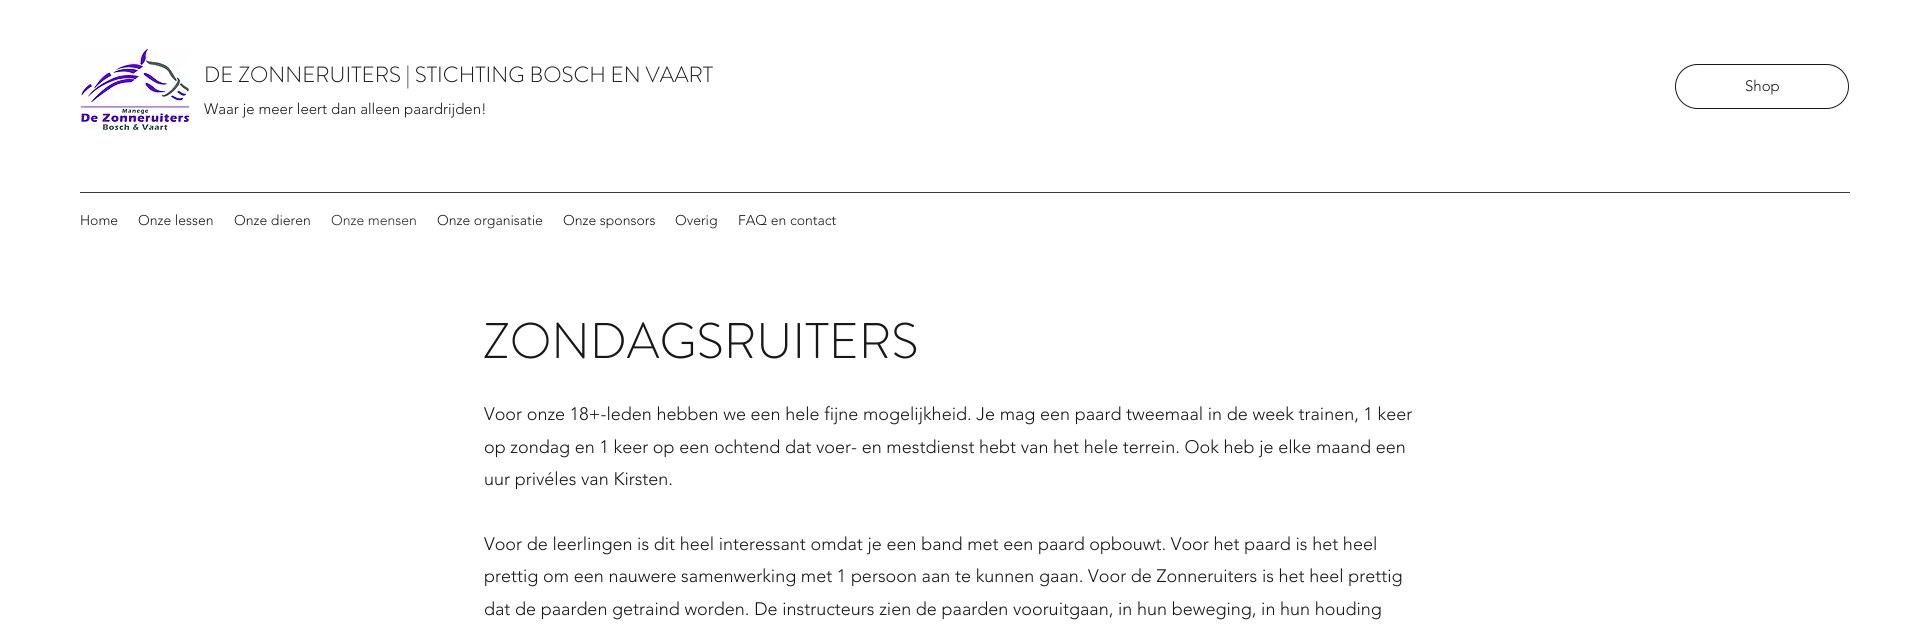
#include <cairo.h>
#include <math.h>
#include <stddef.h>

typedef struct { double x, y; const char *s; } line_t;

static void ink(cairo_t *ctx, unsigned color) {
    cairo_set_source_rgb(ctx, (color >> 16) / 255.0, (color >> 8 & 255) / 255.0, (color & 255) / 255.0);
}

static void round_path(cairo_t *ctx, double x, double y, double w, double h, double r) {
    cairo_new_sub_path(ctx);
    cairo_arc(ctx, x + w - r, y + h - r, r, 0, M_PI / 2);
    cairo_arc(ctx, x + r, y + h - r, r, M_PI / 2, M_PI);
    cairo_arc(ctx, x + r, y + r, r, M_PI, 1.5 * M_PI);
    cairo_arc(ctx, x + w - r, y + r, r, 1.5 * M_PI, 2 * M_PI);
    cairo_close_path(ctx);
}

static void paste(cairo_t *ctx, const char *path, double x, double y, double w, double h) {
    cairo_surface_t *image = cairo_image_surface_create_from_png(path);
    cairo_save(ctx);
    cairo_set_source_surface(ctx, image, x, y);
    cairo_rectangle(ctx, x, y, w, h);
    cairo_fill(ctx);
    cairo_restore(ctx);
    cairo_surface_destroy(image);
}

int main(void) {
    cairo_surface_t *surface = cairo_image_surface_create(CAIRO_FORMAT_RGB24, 1930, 633);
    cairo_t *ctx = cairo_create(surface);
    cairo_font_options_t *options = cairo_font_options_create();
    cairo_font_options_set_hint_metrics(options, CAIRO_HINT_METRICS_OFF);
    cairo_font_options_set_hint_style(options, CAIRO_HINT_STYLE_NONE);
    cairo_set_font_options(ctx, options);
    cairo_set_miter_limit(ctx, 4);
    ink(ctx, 0xFFFFFF);
    cairo_paint(ctx);
    paste(ctx, "media/1.png", 81, 49, 108, 81);
    cairo_select_font_face(ctx, "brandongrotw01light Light", CAIRO_FONT_SLANT_NORMAL, CAIRO_FONT_WEIGHT_NORMAL);
    cairo_set_font_size(ctx, 22);
    ink(ctx, 0x181818);
    cairo_move_to(ctx, 204, 82);
    cairo_show_text(ctx, "DE ZONNERUITERS | STICHTING BOSCH EN VAART");
    cairo_select_font_face(ctx, "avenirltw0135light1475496 Light", CAIRO_FONT_SLANT_NORMAL, CAIRO_FONT_WEIGHT_NORMAL);
    cairo_set_font_size(ctx, 15);
    cairo_move_to(ctx, 204, 114);
    cairo_show_text(ctx, "Waar je meer leert dan alleen paardrijden!");
    round_path(ctx, 1675.5, 64.5, 173, 44, 22);
    cairo_set_line_width(ctx, 1);
    cairo_stroke(ctx);
    cairo_move_to(ctx, 1745, 91);
    cairo_show_text(ctx, "Shop");
    ink(ctx, 0x3B3B3B);
    cairo_rectangle(ctx, 80, 192, 1770, 1);
    cairo_fill(ctx);
    cairo_set_font_size(ctx, 14);
    ink(ctx, 0x181818);
    {
        static const line_t items[] = {
            {80, 225, "Home"},
            {138, 225, "Onze lessen"},
            {234, 225, "Onze dieren"},
        };
        for (size_t i = 0; i < sizeof items / sizeof *items; i++) {
            cairo_move_to(ctx, items[i].x, items[i].y);
            cairo_show_text(ctx, items[i].s);
        }
    }
    ink(ctx, 0x2C2C2C);
    cairo_move_to(ctx, 331, 225);
    cairo_show_text(ctx, "Onze mensen");
    ink(ctx, 0x181818);
    {
        static const line_t items[] = {
            {437, 225, "Onze organisatie"},
            {563, 225, "Onze sponsors"},
            {675, 225, "Overig"},
            {738, 225, "FAQ en contact"},
        };
        for (size_t i = 0; i < sizeof items / sizeof *items; i++) {
            cairo_move_to(ctx, items[i].x, items[i].y);
            cairo_show_text(ctx, items[i].s);
        }
    }
    cairo_select_font_face(ctx, "brandongrotw01light Light", CAIRO_FONT_SLANT_NORMAL, CAIRO_FONT_WEIGHT_NORMAL);
    cairo_set_font_size(ctx, 50);
    cairo_move_to(ctx, 483, 358);
    cairo_show_text(ctx, "ZONDAGSRUITERS");
    cairo_select_font_face(ctx, "avenirltw0135light1475496 Light", CAIRO_FONT_SLANT_NORMAL, CAIRO_FONT_WEIGHT_NORMAL);
    cairo_set_font_size(ctx, 18);
    {
        static const line_t items[] = {
            {484, 420, "Voor onze 18+-leden hebben we een hele fijne mogelijkheid. Je mag een paard tweemaal in de week trainen, 1 keer"},
            {484, 453, "op zondag en 1 keer op een ochtend dat voer- en mestdienst hebt van het hele terrein. Ook heb je elke maand een"},
            {484, 485, "uur privéles van Kirsten."},
            {484, 550, "Voor de leerlingen is dit heel interessant omdat je een band met een paard opbouwt. Voor het paard is het heel"},
            {484, 582, "prettig om een nauwere samenwerking met 1 persoon aan te kunnen gaan. Voor de Zonneruiters is het heel prettig"},
            {484, 615, "dat de paarden getraind worden. De instructeurs zien de paarden vooruitgaan, in hun beweging, in hun houding"},
        };
        for (size_t i = 0; i < sizeof items / sizeof *items; i++) {
            cairo_move_to(ctx, items[i].x, items[i].y);
            cairo_show_text(ctx, items[i].s);
        }
    }
    cairo_surface_write_to_png(surface, "image.png");
    cairo_font_options_destroy(options);
    cairo_destroy(ctx);
    cairo_surface_destroy(surface);
    return 0;
}
